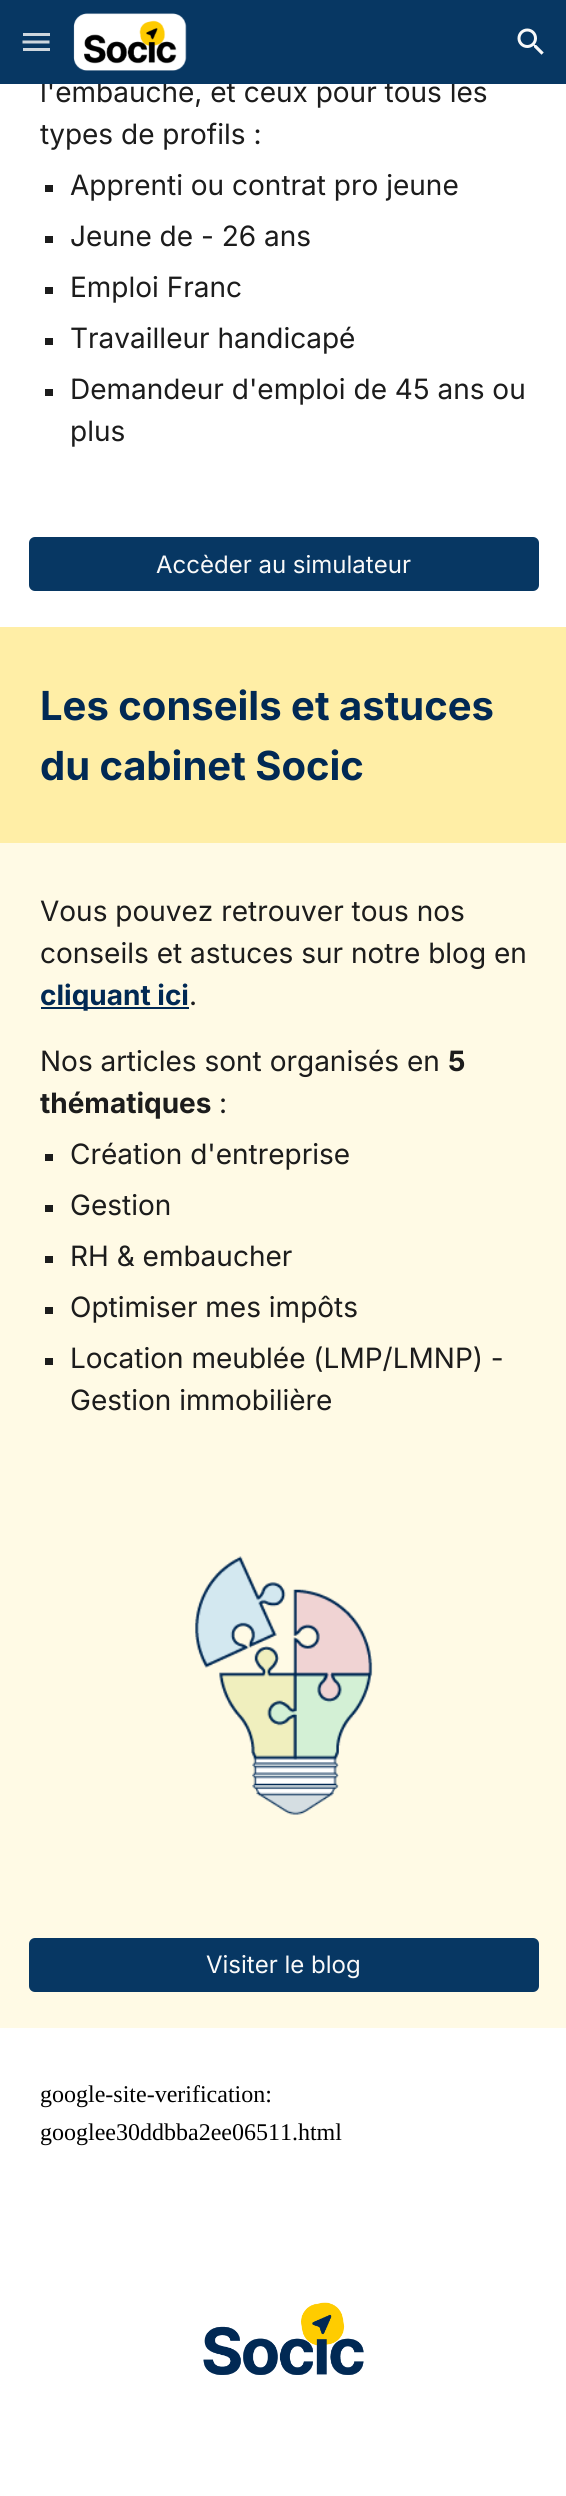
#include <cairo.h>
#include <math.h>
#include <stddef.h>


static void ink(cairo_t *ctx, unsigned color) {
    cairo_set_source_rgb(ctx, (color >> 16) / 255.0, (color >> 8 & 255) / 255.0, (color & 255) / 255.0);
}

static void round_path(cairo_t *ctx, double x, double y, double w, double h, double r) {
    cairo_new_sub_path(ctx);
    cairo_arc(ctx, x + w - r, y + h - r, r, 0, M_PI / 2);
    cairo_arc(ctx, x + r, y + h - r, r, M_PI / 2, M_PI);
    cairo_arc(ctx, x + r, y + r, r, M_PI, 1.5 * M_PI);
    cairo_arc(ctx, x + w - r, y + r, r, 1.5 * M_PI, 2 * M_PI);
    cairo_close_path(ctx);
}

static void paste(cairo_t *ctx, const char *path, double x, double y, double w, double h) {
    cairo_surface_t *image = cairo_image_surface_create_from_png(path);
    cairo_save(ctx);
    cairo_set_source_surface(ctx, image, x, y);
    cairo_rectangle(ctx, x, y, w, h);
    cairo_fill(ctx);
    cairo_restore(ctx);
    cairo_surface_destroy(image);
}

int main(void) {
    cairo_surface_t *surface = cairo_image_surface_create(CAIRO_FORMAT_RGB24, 566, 2496);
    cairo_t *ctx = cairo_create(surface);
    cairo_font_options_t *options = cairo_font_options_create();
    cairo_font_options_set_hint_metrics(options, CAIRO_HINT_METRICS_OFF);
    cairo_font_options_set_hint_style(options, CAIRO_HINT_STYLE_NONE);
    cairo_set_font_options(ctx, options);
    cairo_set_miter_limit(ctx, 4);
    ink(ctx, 0xFFFFFF);
    cairo_paint(ctx);
    cairo_select_font_face(ctx, "Inter", CAIRO_FONT_SLANT_NORMAL, CAIRO_FONT_WEIGHT_NORMAL);
    cairo_set_font_size(ctx, 28);
    ink(ctx, 0x1C1C1C);
    cairo_move_to(ctx, 40, 102);
    cairo_show_text(ctx, "l'embauche, et ceux pour tous les");
    ink(ctx, 0x073763);
    cairo_rectangle(ctx, 0, 0, 566, 84);
    cairo_fill(ctx);
    paste(ctx, "media/1.png", 73, 13, 114, 58);
    paste(ctx, "media/2.png", 517, 28, 27, 27);
    ink(ctx, 0xCDD6DE);
    cairo_rectangle(ctx, 23, 33, 27, 3);
    cairo_fill(ctx);
    cairo_new_path(ctx);
    cairo_move_to(ctx, 22.5, 42);
    cairo_line_to(ctx, 49.5, 42);
    cairo_set_line_width(ctx, 3);
    cairo_stroke(ctx);
    cairo_rectangle(ctx, 23, 48, 27, 3);
    cairo_fill(ctx);
    ink(ctx, 0x1C1C1C);
    cairo_move_to(ctx, 40, 144);
    cairo_show_text(ctx, "types de profils :");
    cairo_rectangle(ctx, 45, 185, 8, 7);
    cairo_fill(ctx);
    cairo_move_to(ctx, 70, 195);
    cairo_show_text(ctx, "Apprenti ou contrat pro jeune");
    cairo_rectangle(ctx, 45, 236, 8, 7);
    cairo_fill(ctx);
    cairo_move_to(ctx, 70, 246);
    cairo_show_text(ctx, "Jeune de - 26 ans");
    cairo_rectangle(ctx, 45, 287, 8, 7);
    cairo_fill(ctx);
    cairo_move_to(ctx, 70, 297);
    cairo_show_text(ctx, "Emploi Franc");
    cairo_rectangle(ctx, 45, 338, 8, 7);
    cairo_fill(ctx);
    cairo_move_to(ctx, 70, 348);
    cairo_show_text(ctx, "Travailleur handicapé");
    cairo_rectangle(ctx, 45, 389, 8, 7);
    cairo_fill(ctx);
    cairo_move_to(ctx, 70, 399);
    cairo_show_text(ctx, "Demandeur d'emploi de 45 ans ou");
    cairo_move_to(ctx, 70, 441);
    cairo_show_text(ctx, "plus");
    ink(ctx, 0x073763);
    round_path(ctx, 30, 538, 508, 52, 5);
    cairo_fill_preserve(ctx);
    cairo_set_line_width(ctx, 2);
    cairo_stroke(ctx);
    cairo_set_font_size(ctx, 24);
    ink(ctx, 0xF9F9F9);
    cairo_move_to(ctx, 156, 573);
    cairo_show_text(ctx, "Accèder au simulateur");
    ink(ctx, 0xFFEEA6);
    cairo_rectangle(ctx, 0, 627, 566, 216);
    cairo_fill(ctx);
    cairo_select_font_face(ctx, "Inter", CAIRO_FONT_SLANT_NORMAL, CAIRO_FONT_WEIGHT_BOLD);
    cairo_set_font_size(ctx, 40);
    ink(ctx, 0x012954);
    cairo_move_to(ctx, 40, 720);
    cairo_show_text(ctx, "Les conseils et astuces");
    cairo_move_to(ctx, 40, 780);
    cairo_show_text(ctx, "du cabinet Socic");
    ink(ctx, 0xFFFAE5);
    cairo_rectangle(ctx, 0, 843, 566, 1185);
    cairo_fill(ctx);
    cairo_select_font_face(ctx, "Inter", CAIRO_FONT_SLANT_NORMAL, CAIRO_FONT_WEIGHT_NORMAL);
    cairo_set_font_size(ctx, 28);
    ink(ctx, 0x1C1C1C);
    cairo_move_to(ctx, 40, 921);
    cairo_show_text(ctx, "Vous pouvez retrouver tous nos");
    cairo_move_to(ctx, 40, 963);
    cairo_show_text(ctx, "conseils et astuces sur notre blog en");
    ink(ctx, 0x012954);
    cairo_rectangle(ctx, 41, 1007, 148, 2);
    cairo_fill(ctx);
    cairo_select_font_face(ctx, "Inter", CAIRO_FONT_SLANT_NORMAL, CAIRO_FONT_WEIGHT_BOLD);
    cairo_move_to(ctx, 40, 1005);
    cairo_show_text(ctx, "cliquant ici");
    cairo_select_font_face(ctx, "Inter", CAIRO_FONT_SLANT_NORMAL, CAIRO_FONT_WEIGHT_NORMAL);
    ink(ctx, 0x1C1C1C);
    cairo_move_to(ctx, 189, 1005);
    cairo_show_text(ctx, ".");
    cairo_move_to(ctx, 40, 1071);
    cairo_show_text(ctx, "Nos articles sont organisés en");
    cairo_select_font_face(ctx, "Inter", CAIRO_FONT_SLANT_NORMAL, CAIRO_FONT_WEIGHT_BOLD);
    cairo_move_to(ctx, 448, 1071);
    cairo_show_text(ctx, "5");
    cairo_move_to(ctx, 40, 1113);
    cairo_show_text(ctx, "thématiques");
    cairo_select_font_face(ctx, "Inter", CAIRO_FONT_SLANT_NORMAL, CAIRO_FONT_WEIGHT_NORMAL);
    cairo_move_to(ctx, 219, 1113);
    cairo_show_text(ctx, ":");
    cairo_rectangle(ctx, 45, 1154, 8, 7);
    cairo_fill(ctx);
    cairo_move_to(ctx, 70, 1164);
    cairo_show_text(ctx, "Création d'entreprise");
    cairo_rectangle(ctx, 45, 1205, 8, 7);
    cairo_fill(ctx);
    cairo_move_to(ctx, 70, 1215);
    cairo_show_text(ctx, "Gestion");
    cairo_rectangle(ctx, 45, 1256, 8, 7);
    cairo_fill(ctx);
    cairo_move_to(ctx, 70, 1266);
    cairo_show_text(ctx, "RH & embaucher");
    cairo_rectangle(ctx, 45, 1307, 8, 7);
    cairo_fill(ctx);
    cairo_move_to(ctx, 70, 1317);
    cairo_show_text(ctx, "Optimiser mes impôts");
    cairo_rectangle(ctx, 45, 1358, 8, 7);
    cairo_fill(ctx);
    cairo_move_to(ctx, 70, 1368);
    cairo_show_text(ctx, "Location meublée (LMP/LMNP) -");
    cairo_move_to(ctx, 70, 1410);
    cairo_show_text(ctx, "Gestion immobilière");
    paste(ctx, "media/3.png", 195, 1556, 178, 259);
    ink(ctx, 0x073763);
    round_path(ctx, 30, 1939, 508, 52, 5);
    cairo_fill_preserve(ctx);
    cairo_stroke(ctx);
    cairo_set_font_size(ctx, 24);
    ink(ctx, 0xF9F9F9);
    cairo_move_to(ctx, 206, 1973);
    cairo_show_text(ctx, "Visiter le blog");
    cairo_select_font_face(ctx, "Liberation Serif", CAIRO_FONT_SLANT_NORMAL, CAIRO_FONT_WEIGHT_NORMAL);
    ink(ctx, 0x000000);
    cairo_move_to(ctx, 40, 2102);
    cairo_show_text(ctx, "google-site-verification:");
    cairo_move_to(ctx, 40, 2140);
    cairo_show_text(ctx, "googlee30ddbba2ee06511.html");
    paste(ctx, "media/4.png", 203, 2302, 161, 73);
    cairo_surface_write_to_png(surface, "image.png");
    cairo_font_options_destroy(options);
    cairo_destroy(ctx);
    cairo_surface_destroy(surface);
    return 0;
}
